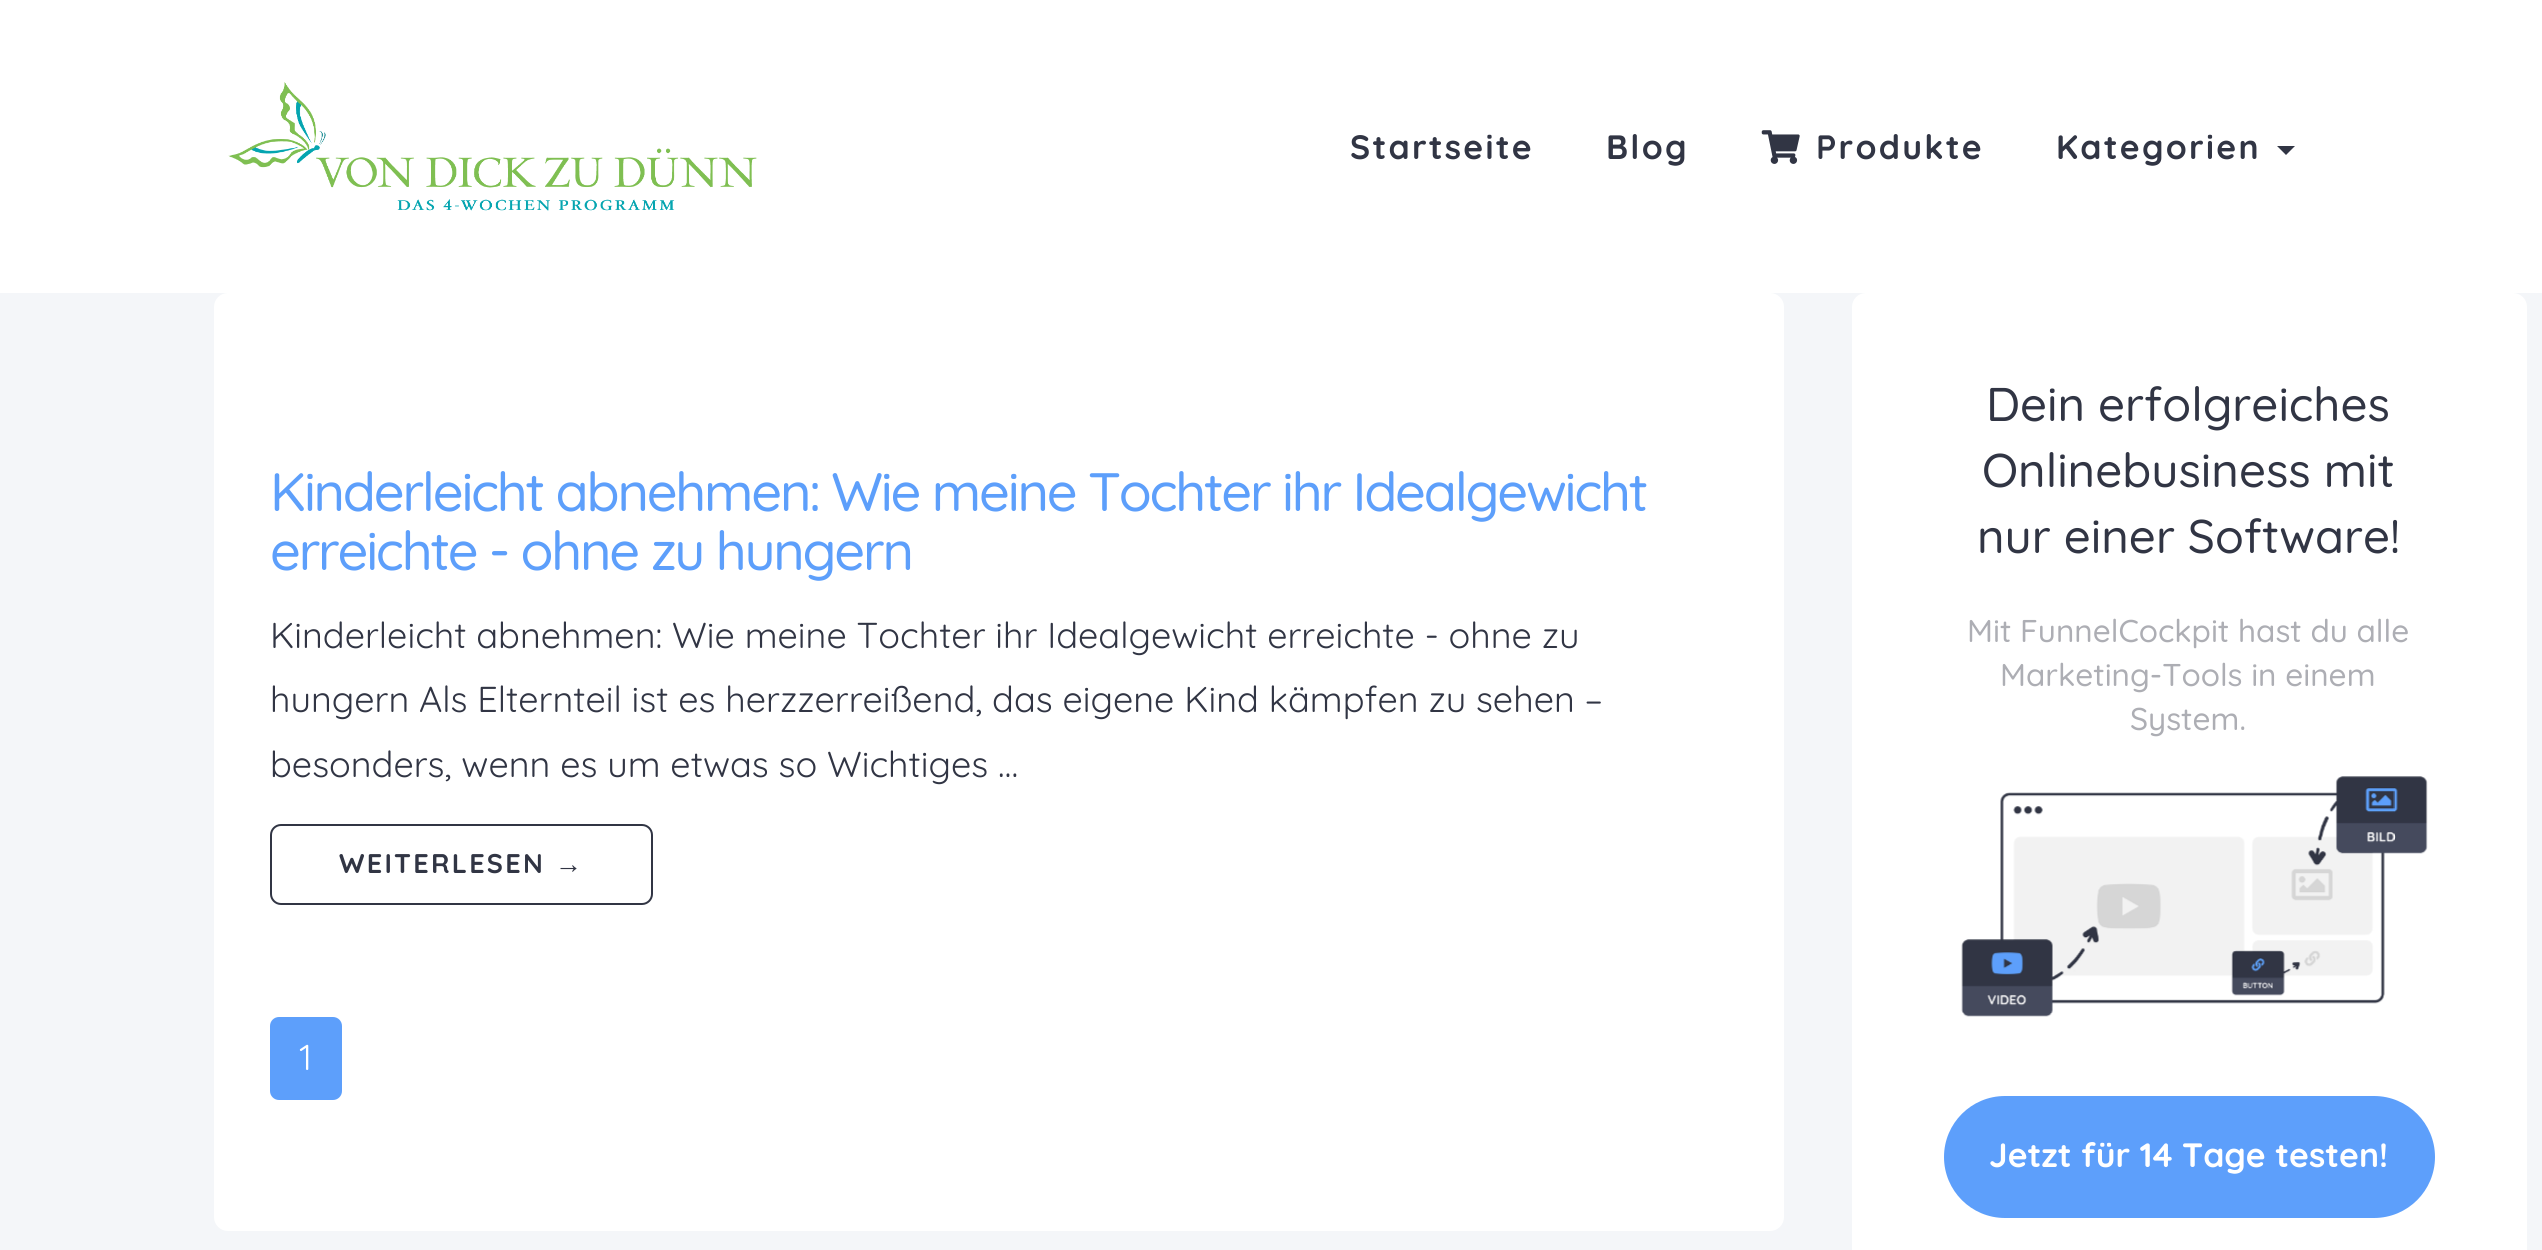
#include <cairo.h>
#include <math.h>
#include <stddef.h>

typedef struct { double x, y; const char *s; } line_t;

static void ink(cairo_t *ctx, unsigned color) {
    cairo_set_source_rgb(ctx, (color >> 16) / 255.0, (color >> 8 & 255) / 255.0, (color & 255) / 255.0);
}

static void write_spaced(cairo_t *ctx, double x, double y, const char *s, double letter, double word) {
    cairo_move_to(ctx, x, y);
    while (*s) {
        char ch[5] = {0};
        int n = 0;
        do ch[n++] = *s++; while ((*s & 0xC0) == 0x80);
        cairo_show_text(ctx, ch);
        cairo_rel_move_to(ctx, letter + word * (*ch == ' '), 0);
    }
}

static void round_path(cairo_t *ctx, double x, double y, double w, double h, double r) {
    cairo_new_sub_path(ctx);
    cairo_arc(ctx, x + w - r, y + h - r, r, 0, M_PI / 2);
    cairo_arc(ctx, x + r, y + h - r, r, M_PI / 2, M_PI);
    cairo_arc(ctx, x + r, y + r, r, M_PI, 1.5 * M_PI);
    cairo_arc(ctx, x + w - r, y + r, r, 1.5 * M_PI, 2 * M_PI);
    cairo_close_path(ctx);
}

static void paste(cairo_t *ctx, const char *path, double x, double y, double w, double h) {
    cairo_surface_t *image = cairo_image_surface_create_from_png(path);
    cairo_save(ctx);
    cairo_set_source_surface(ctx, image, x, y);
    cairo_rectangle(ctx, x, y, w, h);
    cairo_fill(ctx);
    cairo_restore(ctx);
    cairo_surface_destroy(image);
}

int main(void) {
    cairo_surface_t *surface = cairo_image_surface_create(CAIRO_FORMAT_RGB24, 2542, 1250);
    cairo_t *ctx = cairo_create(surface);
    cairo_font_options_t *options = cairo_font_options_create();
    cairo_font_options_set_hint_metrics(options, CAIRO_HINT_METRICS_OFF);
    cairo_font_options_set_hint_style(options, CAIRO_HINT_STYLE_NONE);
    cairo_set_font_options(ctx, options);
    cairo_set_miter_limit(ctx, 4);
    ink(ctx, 0xF4F6F9);
    cairo_paint(ctx);
    ink(ctx, 0xFFFFFF);
    cairo_rectangle(ctx, 0, 0, 2542, 293);
    cairo_fill(ctx);
    paste(ctx, "media/1.png", 228, 82, 529, 129);
    cairo_select_font_face(ctx, "Quicksand", CAIRO_FONT_SLANT_NORMAL, CAIRO_FONT_WEIGHT_BOLD);
    cairo_set_font_size(ctx, 33.75);
    ink(ctx, 0x313544);
    write_spaced(ctx, 1350, 159, "Startseite", 2.25, 0);
    write_spaced(ctx, 1606, 159, "Blog", 2.25, 0);
    paste(ctx, "media/2.png", 1761, 130, 39, 34);
    write_spaced(ctx, 1816, 159, "Produkte", 2.25, 0);
    write_spaced(ctx, 2056, 159, "Kategorien", 2.25, 0);
    cairo_new_path(ctx);
    cairo_move_to(ctx, 2277, 146);
    cairo_line_to(ctx, 2295, 146);
    cairo_line_to(ctx, 2286, 155);
    cairo_close_path(ctx);
    cairo_fill(ctx);
    ink(ctx, 0xFFFFFF);
    round_path(ctx, 214, 293, 1570, 938, 14);
    cairo_fill(ctx);
    cairo_select_font_face(ctx, "Quicksand Medium", CAIRO_FONT_SLANT_NORMAL, CAIRO_FONT_WEIGHT_NORMAL);
    cairo_set_font_size(ctx, 54);
    ink(ctx, 0x5D9FFB);
    write_spaced(ctx, 270, 511, "Kinderleicht abnehmen: Wie meine Tochter ihr Idealgewicht", -2.25, 0);
    write_spaced(ctx, 270, 570, "erreichte - ohne zu hungern", -2.25, 0);
    cairo_select_font_face(ctx, "Quicksand", CAIRO_FONT_SLANT_NORMAL, CAIRO_FONT_WEIGHT_NORMAL);
    cairo_set_font_size(ctx, 36);
    ink(ctx, 0x313544);
    {
        static const line_t items[] = {
            {270, 648, "Kinderleicht abnehmen: Wie meine Tochter ihr Idealgewicht erreichte - ohne zu"},
            {270, 712, "hungern Als Elternteil ist es herzzerreißend, das eigene Kind kämpfen zu sehen –"},
            {270, 777, "besonders, wenn es um etwas so Wichtiges …"},
        };
        for (size_t i = 0; i < sizeof items / sizeof *items; i++) {
            cairo_move_to(ctx, items[i].x, items[i].y);
            cairo_show_text(ctx, items[i].s);
        }
    }
    round_path(ctx, 271, 825, 381, 79, 10);
    cairo_stroke(ctx);
    cairo_select_font_face(ctx, "Quicksand", CAIRO_FONT_SLANT_NORMAL, CAIRO_FONT_WEIGHT_BOLD);
    cairo_set_font_size(ctx, 27);
    write_spaced(ctx, 339, 873, "WEITERLESEN", 2.25, 0);
    cairo_select_font_face(ctx, "Liberation Sans", CAIRO_FONT_SLANT_NORMAL, CAIRO_FONT_WEIGHT_BOLD);
    write_spaced(ctx, 555, 873, "→", 2.25, 0);
    ink(ctx, 0x5D9FFB);
    round_path(ctx, 271, 1018, 70, 81, 8);
    cairo_fill_preserve(ctx);
    cairo_stroke(ctx);
    cairo_select_font_face(ctx, "Quicksand", CAIRO_FONT_SLANT_NORMAL, CAIRO_FONT_WEIGHT_NORMAL);
    cairo_set_font_size(ctx, 36);
    ink(ctx, 0xFFFFFF);
    cairo_move_to(ctx, 299, 1070);
    cairo_show_text(ctx, "1");
    round_path(ctx, 1852, 293, 675, 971, 14);
    cairo_fill(ctx);
    cairo_select_font_face(ctx, "Quicksand Medium", CAIRO_FONT_SLANT_NORMAL, CAIRO_FONT_WEIGHT_NORMAL);
    cairo_set_font_size(ctx, 47.25);
    ink(ctx, 0x313544);
    {
        static const line_t items[] = {
            {1986, 421, "Dein erfolgreiches"},
            {1982, 487, "Onlinebusiness mit"},
            {1977, 553, "nur einer Software!"},
        };
        for (size_t i = 0; i < sizeof items / sizeof *items; i++) {
            cairo_move_to(ctx, items[i].x, items[i].y);
            cairo_show_text(ctx, items[i].s);
        }
    }
    cairo_set_font_size(ctx, 31.5);
    ink(ctx, 0xADAEB4);
    {
        static const line_t items[] = {
            {1967, 642, "Mit FunnelCockpit hast du alle"},
            {2000, 686, "Marketing-Tools in einem"},
            {2130, 730, "System."},
        };
        for (size_t i = 0; i < sizeof items / sizeof *items; i++) {
            cairo_move_to(ctx, items[i].x, items[i].y);
            cairo_show_text(ctx, items[i].s);
        }
    }
    paste(ctx, "media/3.png", 1961, 776, 467, 241);
    ink(ctx, 0x5D9FFB);
    round_path(ctx, 1943, 1095, 493, 124, 62);
    cairo_fill_preserve(ctx);
    ink(ctx, 0xFFFFFF);
    cairo_stroke(ctx);
    cairo_select_font_face(ctx, "Quicksand", CAIRO_FONT_SLANT_NORMAL, CAIRO_FONT_WEIGHT_BOLD);
    cairo_set_font_size(ctx, 33.75);
    cairo_move_to(ctx, 1989, 1167);
    cairo_show_text(ctx, "Jetzt für 14 Tage testen!");
    cairo_surface_write_to_png(surface, "image.png");
    cairo_font_options_destroy(options);
    cairo_destroy(ctx);
    cairo_surface_destroy(surface);
    return 0;
}
